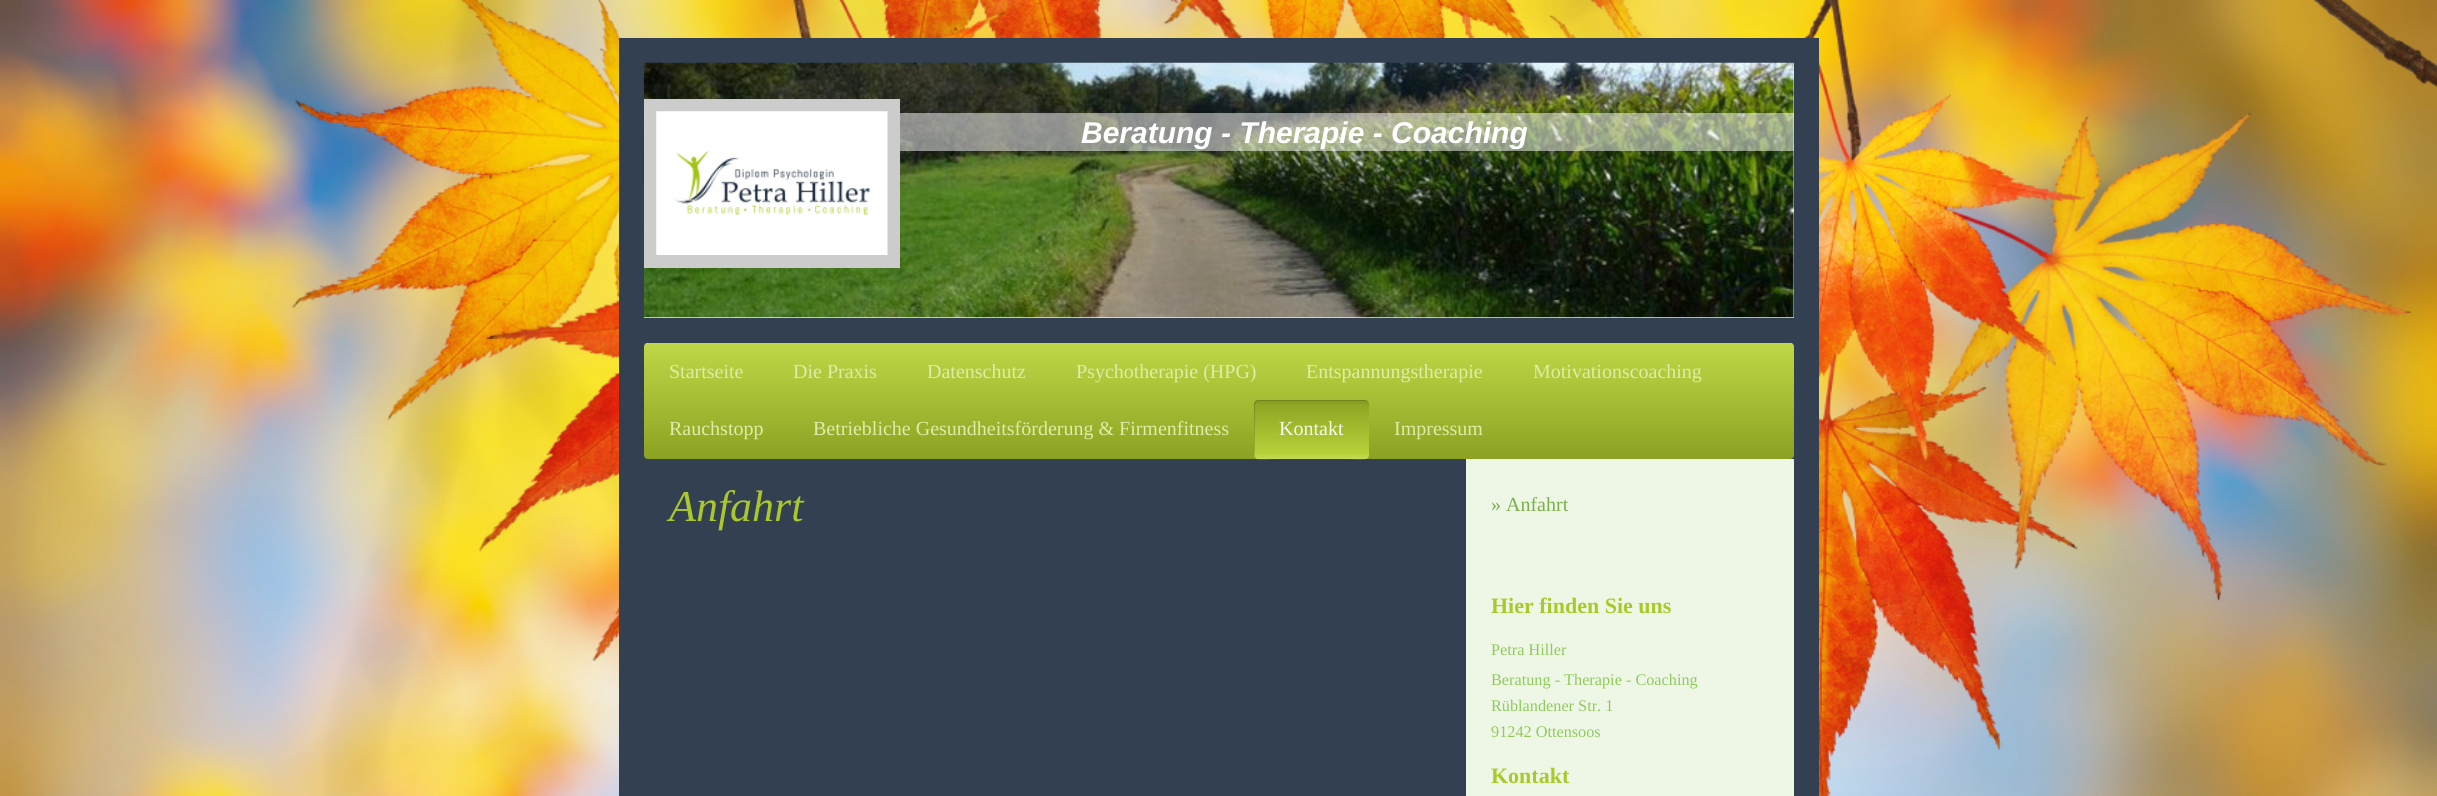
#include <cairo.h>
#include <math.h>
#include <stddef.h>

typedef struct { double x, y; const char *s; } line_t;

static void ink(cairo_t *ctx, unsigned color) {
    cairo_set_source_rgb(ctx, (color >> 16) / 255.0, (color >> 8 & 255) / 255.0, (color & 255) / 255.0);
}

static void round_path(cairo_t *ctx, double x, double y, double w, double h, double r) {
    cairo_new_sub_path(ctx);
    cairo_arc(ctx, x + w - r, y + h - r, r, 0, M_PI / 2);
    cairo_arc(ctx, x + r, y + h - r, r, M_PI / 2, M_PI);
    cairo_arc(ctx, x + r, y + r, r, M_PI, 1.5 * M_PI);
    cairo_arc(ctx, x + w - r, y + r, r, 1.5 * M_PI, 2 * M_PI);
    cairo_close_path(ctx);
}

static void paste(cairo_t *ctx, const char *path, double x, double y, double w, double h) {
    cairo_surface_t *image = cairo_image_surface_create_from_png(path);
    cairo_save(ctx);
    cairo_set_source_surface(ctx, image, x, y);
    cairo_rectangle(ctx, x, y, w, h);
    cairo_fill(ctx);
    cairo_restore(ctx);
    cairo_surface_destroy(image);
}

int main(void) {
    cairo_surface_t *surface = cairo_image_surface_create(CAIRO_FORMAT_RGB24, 2437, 796);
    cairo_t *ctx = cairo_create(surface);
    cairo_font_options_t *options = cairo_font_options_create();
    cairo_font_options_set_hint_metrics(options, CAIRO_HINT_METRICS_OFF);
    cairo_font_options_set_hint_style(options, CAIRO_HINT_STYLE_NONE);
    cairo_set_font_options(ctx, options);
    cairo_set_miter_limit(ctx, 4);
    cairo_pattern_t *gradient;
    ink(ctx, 0xFFFFFF);
    cairo_paint(ctx);
    paste(ctx, "media/1.png", 0, 0, 2437, 796);
    ink(ctx, 0x324051);
    cairo_rectangle(ctx, 619, 38, 1200, 758);
    cairo_fill(ctx);
    ink(ctx, 0xEEEEEE);
    cairo_rectangle(ctx, 644, 63, 1150, 255);
    cairo_fill(ctx);
    paste(ctx, "media/2.png", 643, 62, 1151, 256);
    cairo_rectangle(ctx, 650.5, 105.5, 243, 156);
    ink(ctx, 0xCCCCCC);
    cairo_set_line_width(ctx, 13);
    cairo_stroke(ctx);
    paste(ctx, "media/3.png", 656, 111, 232, 144);
    cairo_set_source_rgba(ctx, 1, 1, 1, 0.5);
    cairo_rectangle(ctx, 900, 113, 894, 38);
    cairo_fill(ctx);
    cairo_select_font_face(ctx, "Liberation Sans", CAIRO_FONT_SLANT_ITALIC, CAIRO_FONT_WEIGHT_BOLD);
    cairo_set_font_size(ctx, 30);
    ink(ctx, 0xFFFFFF);
    cairo_move_to(ctx, 1081, 143);
    cairo_show_text(ctx, "Beratung - Therapie - Coaching");
    gradient = cairo_pattern_create_linear(644, 343, 644, 459);
    cairo_pattern_add_color_stop_rgba(gradient, 0, 0.745, 0.847, 0.278, 1);
    cairo_pattern_add_color_stop_rgba(gradient, 1, 0.545, 0.635, 0.133, 1);
    cairo_set_source(ctx, gradient);
    cairo_pattern_destroy(gradient);
    round_path(ctx, 644, 343, 1150, 116, 4);
    cairo_fill(ctx);
    ink(ctx, 0xA7C429);
    cairo_new_path(ctx);
    cairo_move_to(ctx, 648, 344);
    cairo_line_to(ctx, 1790, 344);
    cairo_curve_to(ctx, 1792, 344, 1794, 345, 1794, 348);
    cairo_curve_to(ctx, 1794, 345, 1793, 343, 1790, 343);
    cairo_line_to(ctx, 648, 343);
    cairo_curve_to(ctx, 645, 343, 644, 345, 644, 348);
    cairo_curve_to(ctx, 644, 345, 645, 344, 648, 344);
    cairo_close_path(ctx);
    cairo_fill(ctx);
    cairo_set_source_rgba(ctx, 1, 1, 1, 0.3);
    cairo_new_path(ctx);
    cairo_move_to(ctx, 648, 344);
    cairo_line_to(ctx, 1790, 344);
    cairo_curve_to(ctx, 1792, 344, 1794, 345, 1794, 348);
    cairo_curve_to(ctx, 1794, 345, 1793, 343, 1790, 343);
    cairo_line_to(ctx, 648, 343);
    cairo_curve_to(ctx, 645, 343, 644, 345, 644, 348);
    cairo_curve_to(ctx, 644, 345, 645, 344, 648, 344);
    cairo_close_path(ctx);
    cairo_fill(ctx);
    cairo_select_font_face(ctx, "Liberation Serif", CAIRO_FONT_SLANT_NORMAL, CAIRO_FONT_WEIGHT_NORMAL);
    cairo_set_font_size(ctx, 20);
    ink(ctx, 0xDFECA7);
    {
        static const line_t items[] = {
            {669, 378, "Startseite"},
            {793, 378, "Die Praxis"},
            {927, 378, "Datenschutz"},
            {1076, 378, "Psychotherapie (HPG)"},
            {1306, 378, "Entspannungstherapie"},
            {1533, 378, "Motivationscoaching"},
            {669, 435, "Rauchstopp"},
            {813, 435, "Betriebliche Gesundheitsförderung & Firmenfitness"},
        };
        for (size_t i = 0; i < sizeof items / sizeof *items; i++) {
            cairo_move_to(ctx, items[i].x, items[i].y);
            cairo_show_text(ctx, items[i].s);
        }
    }
    gradient = cairo_pattern_create_linear(1254, 459, 1254, 400);
    cairo_pattern_add_color_stop_rgba(gradient, 0, 0.725, 0.839, 0.231, 1);
    cairo_pattern_add_color_stop_rgba(gradient, 1, 0.545, 0.635, 0.133, 1);
    cairo_set_source(ctx, gradient);
    cairo_pattern_destroy(gradient);
    round_path(ctx, 1254, 400, 115, 59, 4);
    cairo_fill(ctx);
    cairo_set_source_rgba(ctx, 0, 0, 0, 0.15);
    cairo_new_path(ctx);
    cairo_move_to(ctx, 1259, 401);
    cairo_line_to(ctx, 1366, 401);
    cairo_line_to(ctx, 1368, 402);
    cairo_curve_to(ctx, 1368, 401, 1366, 400, 1365, 400);
    cairo_line_to(ctx, 1258, 400);
    cairo_curve_to(ctx, 1256, 400, 1254, 402, 1254, 404);
    cairo_line_to(ctx, 1254, 455);
    cairo_curve_to(ctx, 1254, 456, 1255, 458, 1256, 458);
    cairo_line_to(ctx, 1255, 456);
    cairo_line_to(ctx, 1255, 405);
    cairo_curve_to(ctx, 1255, 403, 1257, 401, 1259, 401);
    cairo_close_path(ctx);
    cairo_fill(ctx);
    cairo_set_source_rgba(ctx, 0, 0, 0, 0.04);
    cairo_new_path(ctx);
    cairo_move_to(ctx, 1258, 404);
    cairo_line_to(ctx, 1365, 404);
    cairo_curve_to(ctx, 1367, 404, 1369, 405, 1369, 408);
    cairo_line_to(ctx, 1369, 404);
    cairo_curve_to(ctx, 1369, 402, 1367, 400, 1365, 400);
    cairo_line_to(ctx, 1258, 400);
    cairo_curve_to(ctx, 1256, 400, 1254, 402, 1254, 404);
    cairo_line_to(ctx, 1254, 408);
    cairo_curve_to(ctx, 1254, 405, 1255, 404, 1258, 404);
    cairo_close_path(ctx);
    cairo_fill(ctx);
    cairo_set_source_rgba(ctx, 1, 1, 1, 0.08);
    cairo_new_path(ctx);
    cairo_move_to(ctx, 1254, 451);
    cairo_line_to(ctx, 1254, 455);
    cairo_curve_to(ctx, 1254, 457, 1256, 459, 1258, 459);
    cairo_line_to(ctx, 1365, 459);
    cairo_curve_to(ctx, 1367, 459, 1369, 457, 1369, 455);
    cairo_line_to(ctx, 1369, 451);
    cairo_curve_to(ctx, 1369, 453, 1367, 455, 1365, 455);
    cairo_line_to(ctx, 1258, 455);
    cairo_curve_to(ctx, 1255, 455, 1254, 453, 1254, 451);
    cairo_close_path(ctx);
    cairo_fill(ctx);
    cairo_set_source_rgba(ctx, 1, 1, 1, 0.1);
    cairo_new_path(ctx);
    cairo_move_to(ctx, 1254, 454);
    cairo_curve_to(ctx, 1254, 464, 1272, 459, 1276, 459);
    cairo_line_to(ctx, 1347, 459);
    cairo_curve_to(ctx, 1351, 459, 1369, 464, 1369, 454);
    cairo_curve_to(ctx, 1369, 456, 1367, 458, 1365, 458);
    cairo_line_to(ctx, 1258, 458);
    cairo_curve_to(ctx, 1255, 458, 1254, 456, 1254, 454);
    cairo_close_path(ctx);
    cairo_fill(ctx);
    ink(ctx, 0xF7FAEA);
    cairo_move_to(ctx, 1279, 435);
    cairo_show_text(ctx, "Kontakt");
    ink(ctx, 0xDFECA7);
    cairo_move_to(ctx, 1394, 435);
    cairo_show_text(ctx, "Impressum");
    cairo_select_font_face(ctx, "Liberation Serif", CAIRO_FONT_SLANT_ITALIC, CAIRO_FONT_WEIGHT_NORMAL);
    cairo_set_font_size(ctx, 44);
    ink(ctx, 0xABC82A);
    cairo_move_to(ctx, 669, 521);
    cairo_show_text(ctx, "Anfahrt");
    ink(ctx, 0xEEF7E6);
    cairo_rectangle(ctx, 1466, 459, 328, 337);
    cairo_fill(ctx);
    cairo_select_font_face(ctx, "Liberation Serif", CAIRO_FONT_SLANT_NORMAL, CAIRO_FONT_WEIGHT_NORMAL);
    cairo_set_font_size(ctx, 20);
    ink(ctx, 0x79B047);
    cairo_move_to(ctx, 1491, 511);
    cairo_show_text(ctx, "» Anfahrt");
    cairo_select_font_face(ctx, "Liberation Serif", CAIRO_FONT_SLANT_NORMAL, CAIRO_FONT_WEIGHT_BOLD);
    cairo_set_font_size(ctx, 22);
    ink(ctx, 0xABC82A);
    cairo_move_to(ctx, 1491, 613);
    cairo_show_text(ctx, "Hier finden Sie uns");
    cairo_select_font_face(ctx, "Liberation Serif", CAIRO_FONT_SLANT_NORMAL, CAIRO_FONT_WEIGHT_NORMAL);
    cairo_set_font_size(ctx, 16.25);
    ink(ctx, 0x8FCA5B);
    {
        static const line_t items[] = {
            {1491, 655, "Petra Hiller"},
            {1491, 685, "Beratung - Therapie - Coaching"},
            {1491, 711, "Rüblandener Str. 1"},
            {1491, 737, "91242 Ottensoos"},
        };
        for (size_t i = 0; i < sizeof items / sizeof *items; i++) {
            cairo_move_to(ctx, items[i].x, items[i].y);
            cairo_show_text(ctx, items[i].s);
        }
    }
    cairo_select_font_face(ctx, "Liberation Serif", CAIRO_FONT_SLANT_NORMAL, CAIRO_FONT_WEIGHT_BOLD);
    cairo_set_font_size(ctx, 22);
    ink(ctx, 0xABC82A);
    cairo_move_to(ctx, 1491, 783);
    cairo_show_text(ctx, "Kontakt");
    cairo_surface_write_to_png(surface, "image.png");
    cairo_font_options_destroy(options);
    cairo_destroy(ctx);
    cairo_surface_destroy(surface);
    return 0;
}
